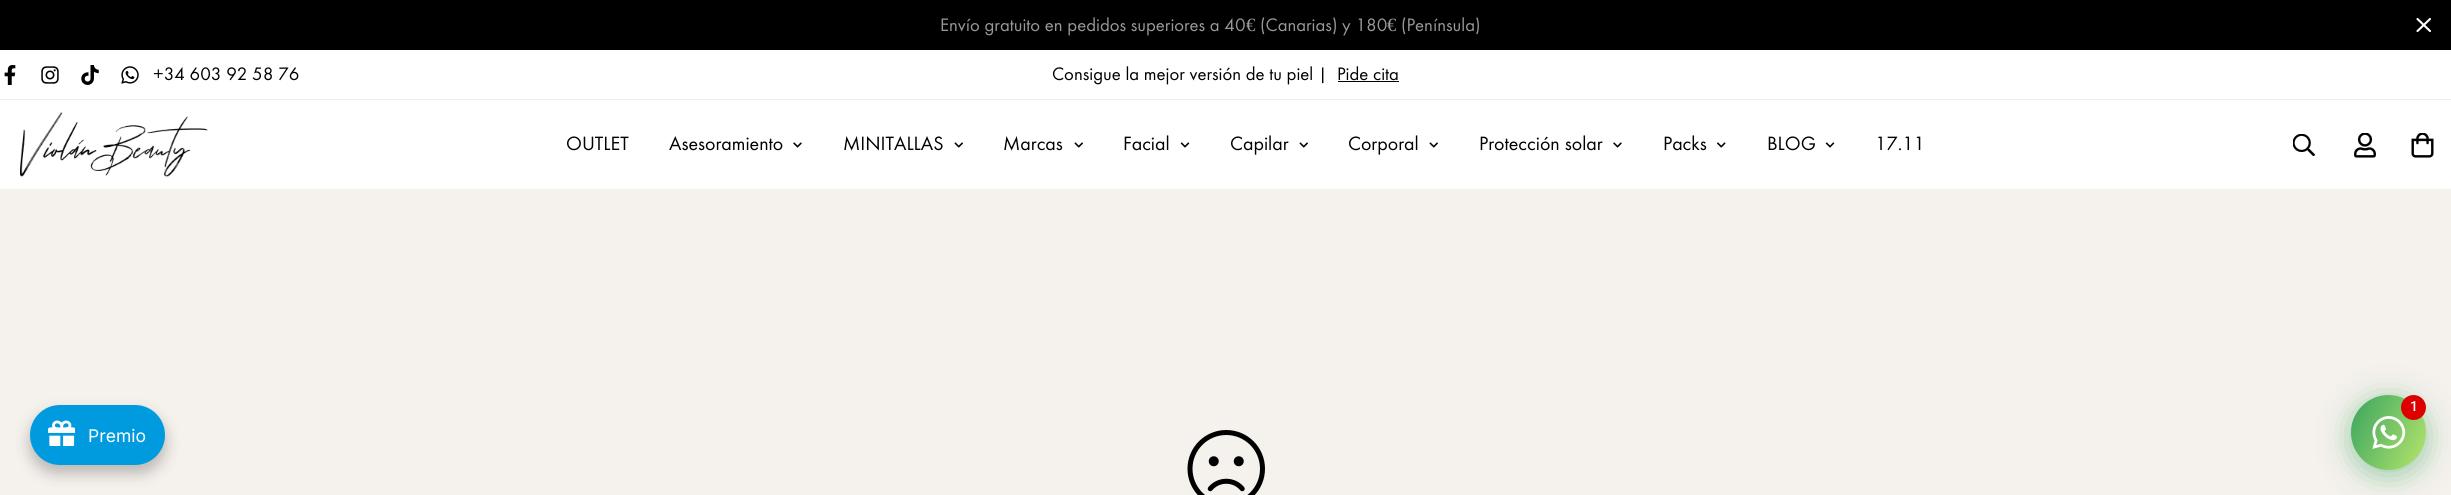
#include <cairo.h>
#include <math.h>
#include <stddef.h>

typedef struct { double x, y; const char *s; } line_t;

static void ink(cairo_t *ctx, unsigned color) {
    cairo_set_source_rgb(ctx, (color >> 16) / 255.0, (color >> 8 & 255) / 255.0, (color & 255) / 255.0);
}

static void round_path(cairo_t *ctx, double x, double y, double w, double h, double r) {
    cairo_new_sub_path(ctx);
    cairo_arc(ctx, x + w - r, y + h - r, r, 0, M_PI / 2);
    cairo_arc(ctx, x + r, y + h - r, r, M_PI / 2, M_PI);
    cairo_arc(ctx, x + r, y + r, r, M_PI, 1.5 * M_PI);
    cairo_arc(ctx, x + w - r, y + r, r, 1.5 * M_PI, 2 * M_PI);
    cairo_close_path(ctx);
}

static void blur_box(cairo_t *ctx, double x, double y, double w, double h, double r, double blur, double alpha) {
    cairo_push_group_with_content(ctx, CAIRO_CONTENT_ALPHA);
    cairo_set_operator(ctx, CAIRO_OPERATOR_SOURCE);
    for (int i = 15; i >= -15 && fmin(w, h) + blur * i / 3 > 0; i -= 2) {
        double e = blur * i / 6;
        cairo_set_source_rgba(ctx, 0, 0, 0, alpha * erfc((i - 1) / 8.5) / 2);
        round_path(ctx, x - e, y - e, w + 2 * e, h + 2 * e, fmax(0, fmin(r + e + blur * .6, fmin(w, h) / 2 + e)));
        cairo_fill(ctx);
    }
    cairo_pattern_t *soft = cairo_pop_group(ctx);
    cairo_mask(ctx, soft);
    cairo_pattern_destroy(soft);
}

static void paste(cairo_t *ctx, const char *path, double x, double y, double w, double h) {
    cairo_surface_t *image = cairo_image_surface_create_from_png(path);
    cairo_save(ctx);
    cairo_set_source_surface(ctx, image, x, y);
    cairo_rectangle(ctx, x, y, w, h);
    cairo_fill(ctx);
    cairo_restore(ctx);
    cairo_surface_destroy(image);
}

int main(void) {
    cairo_surface_t *surface = cairo_image_surface_create(CAIRO_FORMAT_RGB24, 2451, 495);
    cairo_t *ctx = cairo_create(surface);
    cairo_font_options_t *options = cairo_font_options_create();
    cairo_font_options_set_hint_metrics(options, CAIRO_HINT_METRICS_OFF);
    cairo_font_options_set_hint_style(options, CAIRO_HINT_STYLE_NONE);
    cairo_set_font_options(ctx, options);
    cairo_set_miter_limit(ctx, 4);
    cairo_pattern_t *gradient;
    ink(ctx, 0xFFFFFF);
    cairo_paint(ctx);
    ink(ctx, 0x000000);
    cairo_rectangle(ctx, 0, 0, 2451, 50);
    cairo_fill(ctx);
    cairo_select_font_face(ctx, "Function", CAIRO_FONT_SLANT_NORMAL, CAIRO_FONT_WEIGHT_NORMAL);
    cairo_set_font_size(ctx, 18.75);
    ink(ctx, 0x999999);
    cairo_move_to(ctx, 940, 31);
    cairo_show_text(ctx, "Envío gratuito en pedidos superiores a 40");
    cairo_select_font_face(ctx, "Liberation Serif", CAIRO_FONT_SLANT_NORMAL, CAIRO_FONT_WEIGHT_NORMAL);
    cairo_move_to(ctx, 1246, 31);
    cairo_show_text(ctx, "€");
    cairo_select_font_face(ctx, "Function", CAIRO_FONT_SLANT_NORMAL, CAIRO_FONT_WEIGHT_NORMAL);
    cairo_move_to(ctx, 1260, 31);
    cairo_show_text(ctx, "(Canarias) y 180");
    cairo_select_font_face(ctx, "Liberation Serif", CAIRO_FONT_SLANT_NORMAL, CAIRO_FONT_WEIGHT_NORMAL);
    cairo_move_to(ctx, 1387, 31);
    cairo_show_text(ctx, "€");
    cairo_select_font_face(ctx, "Function", CAIRO_FONT_SLANT_NORMAL, CAIRO_FONT_WEIGHT_NORMAL);
    cairo_move_to(ctx, 1401, 31);
    cairo_show_text(ctx, "(Península)");
    cairo_new_path(ctx);
    cairo_move_to(ctx, 2417.5, 31);
    cairo_line_to(ctx, 2430, 19);
    cairo_move_to(ctx, 2417.5, 19);
    cairo_line_to(ctx, 2430, 31);
    ink(ctx, 0xFFFFFF);
    cairo_set_line_width(ctx, 2.1);
    cairo_set_line_cap(ctx, CAIRO_LINE_CAP_ROUND);
    cairo_set_line_join(ctx, CAIRO_LINE_JOIN_ROUND);
    cairo_stroke(ctx);
    ink(ctx, 0xEEEEEE);
    cairo_rectangle(ctx, 0, 99, 2451, 1);
    cairo_fill(ctx);
    paste(ctx, "media/1.png", 4, 65, 12, 20);
    paste(ctx, "media/2.png", 41, 66, 18, 18);
    paste(ctx, "media/3.png", 81, 65, 18, 20);
    paste(ctx, "media/4.png", 121, 66, 18, 18);
    ink(ctx, 0x000000);
    {
        static const line_t items[] = {
            {153, 80, "+34 603 92 58 76"},
            {1052, 80, "Consigue la mejor versión de tu piel |"},
            {1337, 80, "Pide cita"},
        };
        for (size_t i = 0; i < sizeof items / sizeof *items; i++) {
            cairo_move_to(ctx, items[i].x, items[i].y);
            cairo_show_text(ctx, items[i].s);
        }
    }
    cairo_rectangle(ctx, 1338, 81, 61, 1);
    cairo_fill(ctx);
    paste(ctx, "media/5.png", 20, 112, 188, 65);
    cairo_set_font_size(ctx, 20);
    cairo_move_to(ctx, 566, 150);
    cairo_show_text(ctx, "OUTLET");
    cairo_move_to(ctx, 669, 150);
    cairo_show_text(ctx, "Asesoramiento");
    paste(ctx, "media/6.png", 793, 142, 9, 6);
    cairo_move_to(ctx, 843, 150);
    cairo_show_text(ctx, "MINITALLAS");
    paste(ctx, "media/7.png", 954, 142, 9, 6);
    cairo_move_to(ctx, 1003, 150);
    cairo_show_text(ctx, "Marcas");
    paste(ctx, "media/7.png", 1074, 142, 9, 6);
    cairo_move_to(ctx, 1123, 150);
    cairo_show_text(ctx, "Facial");
    paste(ctx, "media/8.png", 1180, 142, 10, 6);
    cairo_move_to(ctx, 1230, 150);
    cairo_show_text(ctx, "Capilar");
    paste(ctx, "media/7.png", 1299, 142, 9, 6);
    cairo_move_to(ctx, 1348, 150);
    cairo_show_text(ctx, "Corporal");
    paste(ctx, "media/7.png", 1429, 142, 9, 6);
    cairo_move_to(ctx, 1479, 150);
    cairo_show_text(ctx, "Protección solar");
    paste(ctx, "media/6.png", 1613, 142, 9, 6);
    cairo_move_to(ctx, 1663, 150);
    cairo_show_text(ctx, "Packs");
    paste(ctx, "media/9.png", 1717, 142, 9, 6);
    cairo_move_to(ctx, 1767, 150);
    cairo_show_text(ctx, "BLOG");
    paste(ctx, "media/8.png", 1825, 142, 10, 6);
    cairo_move_to(ctx, 1875, 150);
    cairo_show_text(ctx, "17.11");
    paste(ctx, "media/10.png", 2293, 134, 22, 22);
    paste(ctx, "media/11.png", 2354, 133, 22, 25);
    paste(ctx, "media/12.png", 2411, 133, 23, 25);
    ink(ctx, 0xF5F1ED);
    cairo_rectangle(ctx, 0, 189, 2451, 306);
    cairo_fill(ctx);
    paste(ctx, "media/13.png", 1187, 430, 78, 65);
    ink(ctx, 0x3AA560);
    blur_box(ctx, 2351, 400, 75, 75, 37.5, 15, 0.5);
    gradient = cairo_pattern_create_linear(2344, 411, 2434, 454);
    cairo_pattern_add_color_stop_rgba(gradient, 0, 0.227, 0.647, 0.376, 1);
    cairo_pattern_add_color_stop_rgba(gradient, 1, 0.718, 0.902, 0.424, 1);
    cairo_set_source(ctx, gradient);
    cairo_pattern_destroy(gradient);
    cairo_arc(ctx, 2388.5, 432.5, 37.5, 0, 2 * M_PI);
    cairo_fill(ctx);
    paste(ctx, "media/14.png", 2372, 416, 34, 33);
    ink(ctx, 0xDD0000);
    cairo_arc(ctx, 2413.5, 407.5, 12.5, 0, 2 * M_PI);
    cairo_fill(ctx);
    cairo_select_font_face(ctx, "Roboto Medium", CAIRO_FONT_SLANT_NORMAL, CAIRO_FONT_WEIGHT_NORMAL);
    cairo_set_font_size(ctx, 14);
    ink(ctx, 0xFFFFFF);
    cairo_move_to(ctx, 2410, 411);
    cairo_show_text(ctx, "1");
    ink(ctx, 0x000000);
    blur_box(ctx, 30, 413, 135, 60, 30, 7.5, 0.25);
    ink(ctx, 0x009BDF);
    round_path(ctx, 30, 405, 135, 60, 30);
    cairo_fill(ctx);
    paste(ctx, "media/15.png", 48, 420, 27, 26);
    cairo_select_font_face(ctx, "Inter", CAIRO_FONT_SLANT_NORMAL, CAIRO_FONT_WEIGHT_NORMAL);
    cairo_set_font_size(ctx, 17.5);
    ink(ctx, 0xFFFFFF);
    cairo_move_to(ctx, 88, 442);
    cairo_show_text(ctx, "Premio");
    cairo_surface_write_to_png(surface, "image.png");
    cairo_font_options_destroy(options);
    cairo_destroy(ctx);
    cairo_surface_destroy(surface);
    return 0;
}
